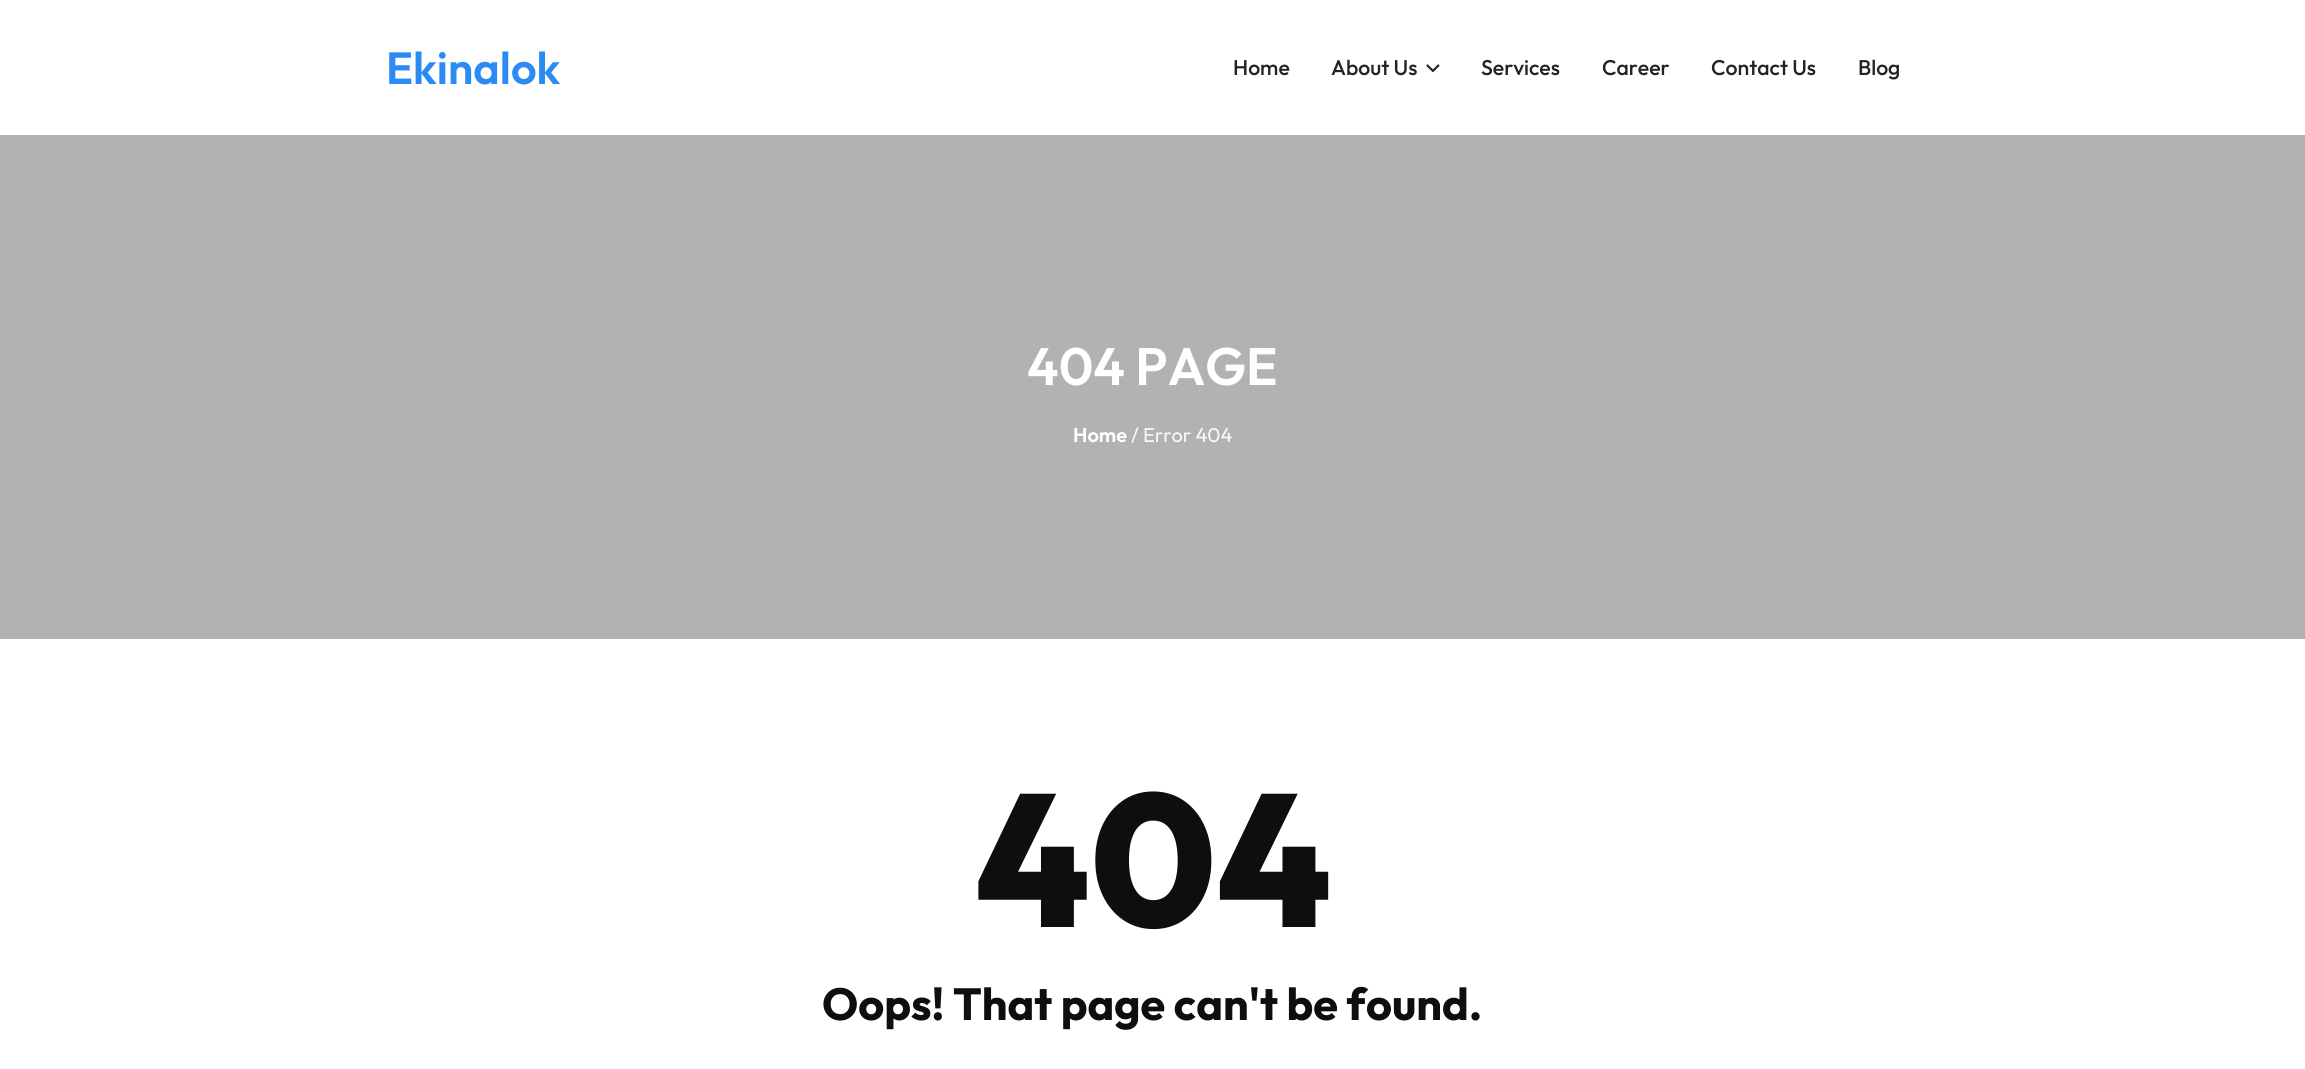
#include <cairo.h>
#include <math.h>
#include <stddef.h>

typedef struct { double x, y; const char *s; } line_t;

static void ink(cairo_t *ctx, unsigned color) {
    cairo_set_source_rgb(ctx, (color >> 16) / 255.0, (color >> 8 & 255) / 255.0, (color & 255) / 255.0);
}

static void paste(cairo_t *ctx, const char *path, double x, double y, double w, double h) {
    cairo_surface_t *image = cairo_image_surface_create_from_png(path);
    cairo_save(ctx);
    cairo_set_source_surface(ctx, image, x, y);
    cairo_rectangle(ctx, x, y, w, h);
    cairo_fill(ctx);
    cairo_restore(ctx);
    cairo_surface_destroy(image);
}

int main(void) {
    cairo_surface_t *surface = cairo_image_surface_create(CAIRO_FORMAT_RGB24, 2305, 1069);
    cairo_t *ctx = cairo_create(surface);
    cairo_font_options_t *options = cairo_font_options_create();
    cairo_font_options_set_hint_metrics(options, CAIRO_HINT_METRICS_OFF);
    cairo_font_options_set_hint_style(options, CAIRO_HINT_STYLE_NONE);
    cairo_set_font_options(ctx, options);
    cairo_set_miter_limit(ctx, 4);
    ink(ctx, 0xFFFFFF);
    cairo_paint(ctx);
    cairo_select_font_face(ctx, "Outfit SemiBold", CAIRO_FONT_SLANT_NORMAL, CAIRO_FONT_WEIGHT_NORMAL);
    cairo_set_font_size(ctx, 45);
    ink(ctx, 0x2B8BF2);
    cairo_move_to(ctx, 386, 84);
    cairo_show_text(ctx, "Ekinalok");
    cairo_select_font_face(ctx, "Outfit Medium", CAIRO_FONT_SLANT_NORMAL, CAIRO_FONT_WEIGHT_NORMAL);
    cairo_set_font_size(ctx, 21.25);
    ink(ctx, 0x232323);
    cairo_move_to(ctx, 1233, 75);
    cairo_show_text(ctx, "Home");
    cairo_move_to(ctx, 1331, 75);
    cairo_show_text(ctx, "About Us");
    paste(ctx, "media/1.png", 1426, 64, 14, 9);
    {
        static const line_t items[] = {
            {1481, 75, "Services"},
            {1602, 75, "Career"},
            {1711, 75, "Contact Us"},
            {1858, 75, "Blog"},
        };
        for (size_t i = 0; i < sizeof items / sizeof *items; i++) {
            cairo_move_to(ctx, items[i].x, items[i].y);
            cairo_show_text(ctx, items[i].s);
        }
    }
    ink(ctx, 0xB1B2B4);
    cairo_rectangle(ctx, 0, 135, 2305, 504);
    cairo_fill(ctx);
    cairo_select_font_face(ctx, "Outfit SemiBold", CAIRO_FONT_SLANT_NORMAL, CAIRO_FONT_WEIGHT_NORMAL);
    cairo_set_font_size(ctx, 52.5);
    ink(ctx, 0xFFFFFF);
    cairo_move_to(ctx, 1027, 385);
    cairo_show_text(ctx, "404 PAGE");
    cairo_set_font_size(ctx, 20);
    cairo_move_to(ctx, 1073, 442);
    cairo_show_text(ctx, "Home");
    cairo_select_font_face(ctx, "Outfit", CAIRO_FONT_SLANT_NORMAL, CAIRO_FONT_WEIGHT_NORMAL);
    ink(ctx, 0xF8F9FA);
    cairo_move_to(ctx, 1131, 442);
    cairo_show_text(ctx, "/ Error 404");
    cairo_select_font_face(ctx, "Outfit ExtraBold", CAIRO_FONT_SLANT_NORMAL, CAIRO_FONT_WEIGHT_NORMAL);
    cairo_set_font_size(ctx, 188);
    ink(ctx, 0x0E0E0E);
    cairo_move_to(ctx, 975, 927);
    cairo_show_text(ctx, "404");
    cairo_select_font_face(ctx, "Outfit", CAIRO_FONT_SLANT_NORMAL, CAIRO_FONT_WEIGHT_BOLD);
    cairo_set_font_size(ctx, 45);
    cairo_move_to(ctx, 822, 1020);
    cairo_show_text(ctx, "Oops! That page can't be found.");
    cairo_surface_write_to_png(surface, "image.png");
    cairo_font_options_destroy(options);
    cairo_destroy(ctx);
    cairo_surface_destroy(surface);
    return 0;
}
